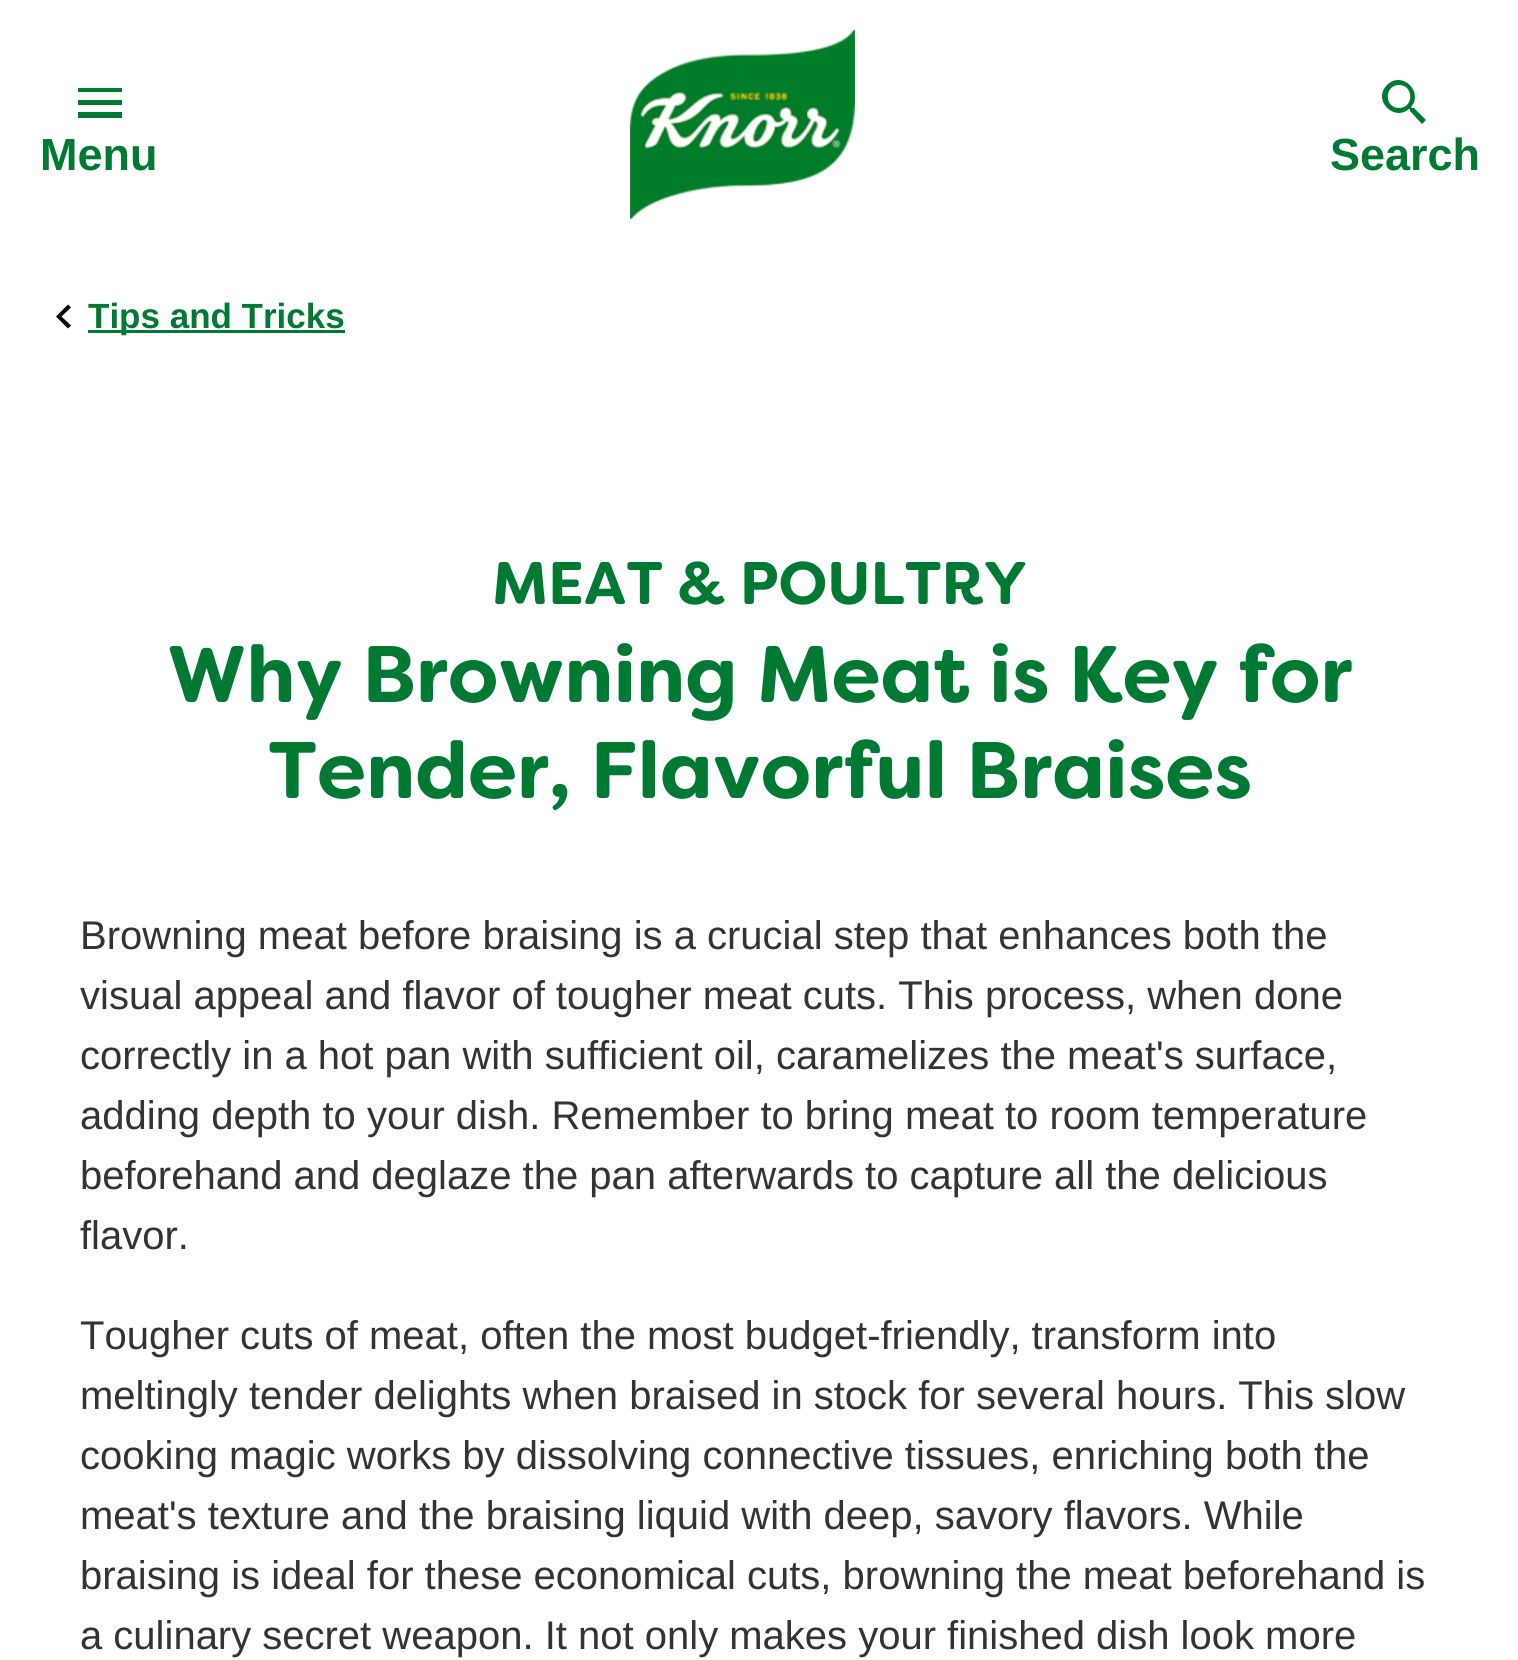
#include <cairo.h>
#include <math.h>
#include <stddef.h>

typedef struct { double x, y; const char *s; } line_t;

static void ink(cairo_t *ctx, unsigned color) {
    cairo_set_source_rgb(ctx, (color >> 16) / 255.0, (color >> 8 & 255) / 255.0, (color & 255) / 255.0);
}

static void paste(cairo_t *ctx, const char *path, double x, double y, double w, double h) {
    cairo_surface_t *image = cairo_image_surface_create_from_png(path);
    cairo_save(ctx);
    cairo_set_source_surface(ctx, image, x, y);
    cairo_rectangle(ctx, x, y, w, h);
    cairo_fill(ctx);
    cairo_restore(ctx);
    cairo_surface_destroy(image);
}

int main(void) {
    cairo_surface_t *surface = cairo_image_surface_create(CAIRO_FORMAT_RGB24, 1518, 1660);
    cairo_t *ctx = cairo_create(surface);
    cairo_font_options_t *options = cairo_font_options_create();
    cairo_font_options_set_hint_metrics(options, CAIRO_HINT_METRICS_OFF);
    cairo_font_options_set_hint_style(options, CAIRO_HINT_STYLE_NONE);
    cairo_set_font_options(ctx, options);
    cairo_set_miter_limit(ctx, 4);
    ink(ctx, 0xFFFFFF);
    cairo_paint(ctx);
    ink(ctx, 0x007A33);
    cairo_new_path(ctx);
    cairo_move_to(ctx, 78, 118);
    cairo_line_to(ctx, 122, 118);
    cairo_line_to(ctx, 122, 112);
    cairo_line_to(ctx, 78, 112);
    cairo_close_path(ctx);
    cairo_move_to(ctx, 78, 105);
    cairo_line_to(ctx, 122, 105);
    cairo_line_to(ctx, 122, 100);
    cairo_line_to(ctx, 78, 100);
    cairo_close_path(ctx);
    cairo_move_to(ctx, 78, 88);
    cairo_line_to(ctx, 78, 92);
    cairo_line_to(ctx, 122, 92);
    cairo_line_to(ctx, 122, 88);
    cairo_close_path(ctx);
    cairo_fill(ctx);
    cairo_select_font_face(ctx, "Liberation Sans", CAIRO_FONT_SLANT_NORMAL, CAIRO_FONT_WEIGHT_BOLD);
    cairo_set_font_size(ctx, 45);
    cairo_move_to(ctx, 40, 170);
    cairo_show_text(ctx, "Menu");
    paste(ctx, "media/1.png", 630, 30, 225, 190);
    ink(ctx, 0x007933);
    cairo_new_path(ctx);
    cairo_move_to(ctx, 1414, 108);
    cairo_line_to(ctx, 1412, 108);
    cairo_line_to(ctx, 1411, 107);
    cairo_curve_to(ctx, 1424, 92, 1402, 70, 1387, 85);
    cairo_curve_to(ctx, 1372, 100, 1394, 122, 1409, 109);
    cairo_line_to(ctx, 1410, 109);
    cairo_line_to(ctx, 1410, 111);
    cairo_line_to(ctx, 1422, 124);
    cairo_line_to(ctx, 1426, 120);
    cairo_close_path(ctx);
    cairo_move_to(ctx, 1399, 108);
    cairo_curve_to(ctx, 1384, 108, 1384, 85, 1399, 85);
    cairo_curve_to(ctx, 1414, 85, 1414, 108, 1399, 108);
    cairo_close_path(ctx);
    cairo_fill(ctx);
    ink(ctx, 0x007A33);
    cairo_move_to(ctx, 1330, 170);
    cairo_show_text(ctx, "Search");
    ink(ctx, 0x000000);
    cairo_new_path(ctx);
    cairo_move_to(ctx, 71, 307.5);
    cairo_line_to(ctx, 68, 304.5);
    cairo_line_to(ctx, 56, 316.5);
    cairo_line_to(ctx, 68, 328.5);
    cairo_line_to(ctx, 71, 325.5);
    cairo_line_to(ctx, 61.5, 316.5);
    cairo_close_path(ctx);
    cairo_fill(ctx);
    ink(ctx, 0x007A33);
    cairo_rectangle(ctx, 88, 330, 257, 3);
    cairo_fill(ctx);
    cairo_set_font_size(ctx, 35);
    cairo_move_to(ctx, 88, 328);
    cairo_show_text(ctx, "Tips and Tricks");
    cairo_select_font_face(ctx, "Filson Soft", CAIRO_FONT_SLANT_NORMAL, CAIRO_FONT_WEIGHT_BOLD);
    cairo_set_font_size(ctx, 60);
    cairo_move_to(ctx, 492, 604);
    cairo_show_text(ctx, "MEAT & POULTRY");
    cairo_set_font_size(ctx, 80);
    cairo_move_to(ctx, 167, 702);
    cairo_show_text(ctx, "Why Browning Meat is Key for");
    cairo_move_to(ctx, 268, 798);
    cairo_show_text(ctx, "Tender, Flavorful Braises");
    cairo_select_font_face(ctx, "Liberation Sans", CAIRO_FONT_SLANT_NORMAL, CAIRO_FONT_WEIGHT_NORMAL);
    cairo_set_font_size(ctx, 40);
    ink(ctx, 0x333333);
    {
        static const line_t items[] = {
            {80, 949, "Browning meat before braising is a crucial step that enhances both the"},
            {80, 1009, "visual appeal and flavor of tougher meat cuts. This process, when done"},
            {80, 1069, "correctly in a hot pan with sufficient oil, caramelizes the meat's surface,"},
            {80, 1129, "adding depth to your dish. Remember to bring meat to room temperature"},
            {80, 1189, "beforehand and deglaze the pan afterwards to capture all the delicious"},
            {80, 1249, "flavor."},
            {80, 1349, "Tougher cuts of meat, often the most budget-friendly, transform into"},
            {80, 1409, "meltingly tender delights when braised in stock for several hours. This slow"},
            {80, 1469, "cooking magic works by dissolving connective tissues, enriching both the"},
            {80, 1529, "meat's texture and the braising liquid with deep, savory flavors. While"},
            {80, 1589, "braising is ideal for these economical cuts, browning the meat beforehand is"},
            {80, 1649, "a culinary secret weapon. It not only makes your finished dish look more"},
        };
        for (size_t i = 0; i < sizeof items / sizeof *items; i++) {
            cairo_move_to(ctx, items[i].x, items[i].y);
            cairo_show_text(ctx, items[i].s);
        }
    }
    cairo_surface_write_to_png(surface, "image.png");
    cairo_font_options_destroy(options);
    cairo_destroy(ctx);
    cairo_surface_destroy(surface);
    return 0;
}
